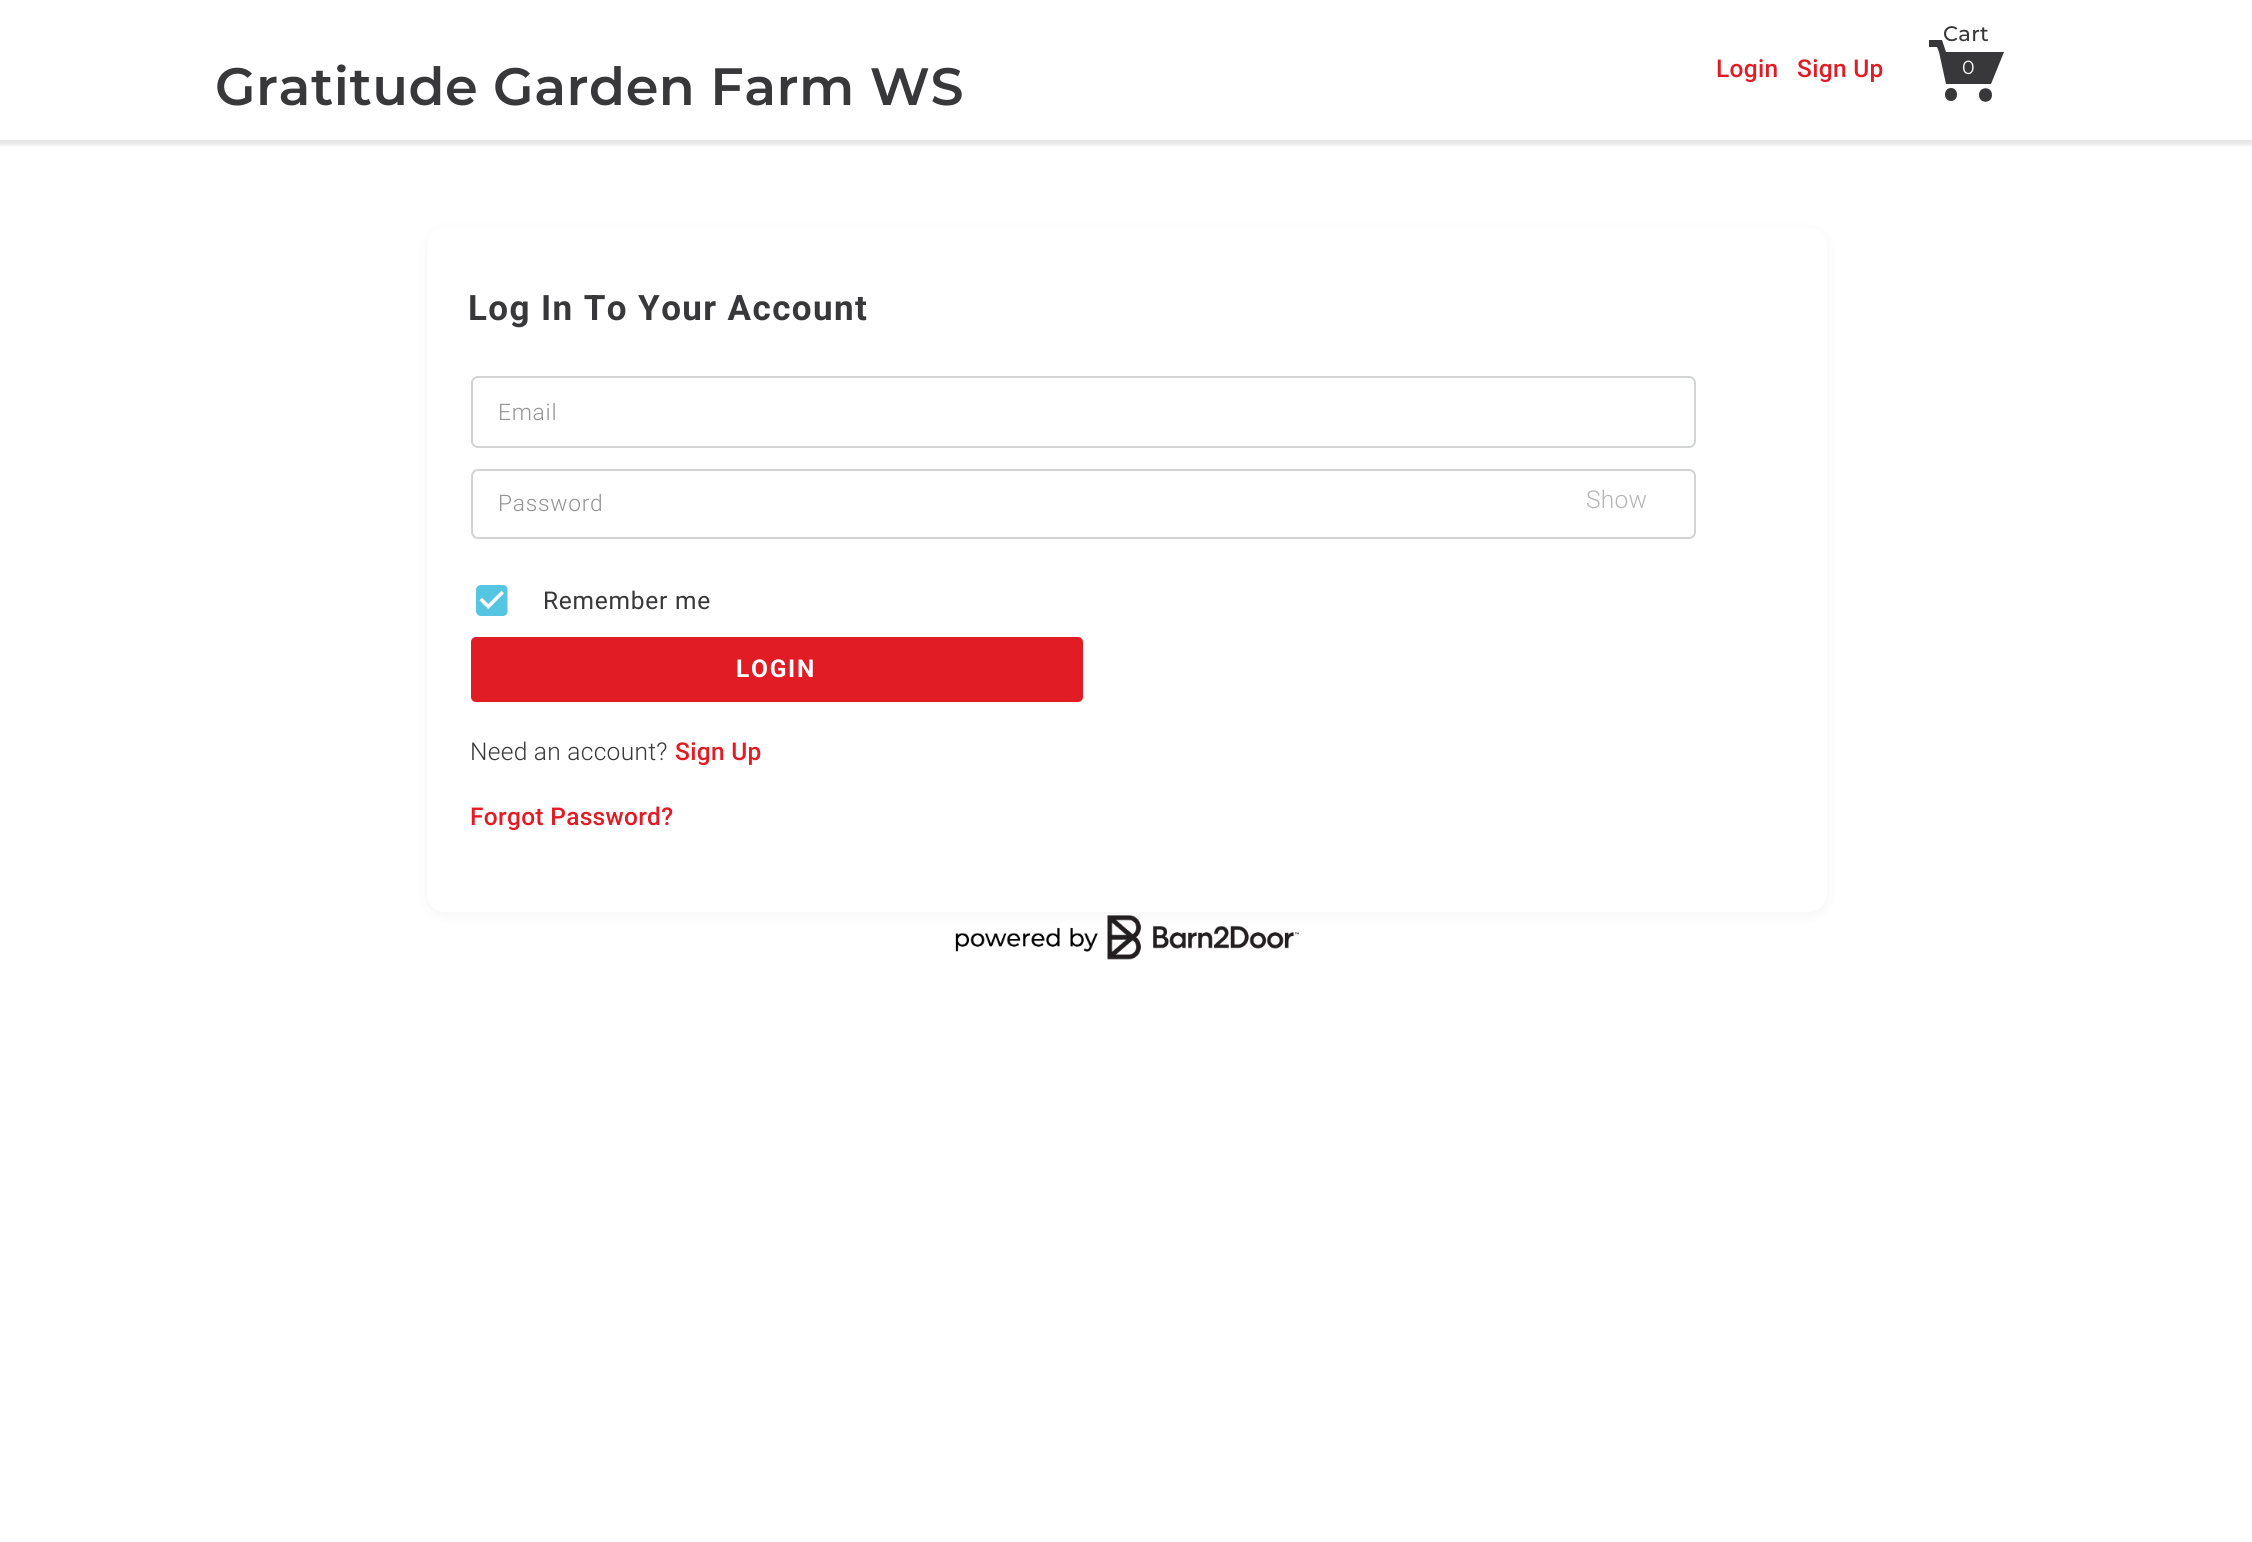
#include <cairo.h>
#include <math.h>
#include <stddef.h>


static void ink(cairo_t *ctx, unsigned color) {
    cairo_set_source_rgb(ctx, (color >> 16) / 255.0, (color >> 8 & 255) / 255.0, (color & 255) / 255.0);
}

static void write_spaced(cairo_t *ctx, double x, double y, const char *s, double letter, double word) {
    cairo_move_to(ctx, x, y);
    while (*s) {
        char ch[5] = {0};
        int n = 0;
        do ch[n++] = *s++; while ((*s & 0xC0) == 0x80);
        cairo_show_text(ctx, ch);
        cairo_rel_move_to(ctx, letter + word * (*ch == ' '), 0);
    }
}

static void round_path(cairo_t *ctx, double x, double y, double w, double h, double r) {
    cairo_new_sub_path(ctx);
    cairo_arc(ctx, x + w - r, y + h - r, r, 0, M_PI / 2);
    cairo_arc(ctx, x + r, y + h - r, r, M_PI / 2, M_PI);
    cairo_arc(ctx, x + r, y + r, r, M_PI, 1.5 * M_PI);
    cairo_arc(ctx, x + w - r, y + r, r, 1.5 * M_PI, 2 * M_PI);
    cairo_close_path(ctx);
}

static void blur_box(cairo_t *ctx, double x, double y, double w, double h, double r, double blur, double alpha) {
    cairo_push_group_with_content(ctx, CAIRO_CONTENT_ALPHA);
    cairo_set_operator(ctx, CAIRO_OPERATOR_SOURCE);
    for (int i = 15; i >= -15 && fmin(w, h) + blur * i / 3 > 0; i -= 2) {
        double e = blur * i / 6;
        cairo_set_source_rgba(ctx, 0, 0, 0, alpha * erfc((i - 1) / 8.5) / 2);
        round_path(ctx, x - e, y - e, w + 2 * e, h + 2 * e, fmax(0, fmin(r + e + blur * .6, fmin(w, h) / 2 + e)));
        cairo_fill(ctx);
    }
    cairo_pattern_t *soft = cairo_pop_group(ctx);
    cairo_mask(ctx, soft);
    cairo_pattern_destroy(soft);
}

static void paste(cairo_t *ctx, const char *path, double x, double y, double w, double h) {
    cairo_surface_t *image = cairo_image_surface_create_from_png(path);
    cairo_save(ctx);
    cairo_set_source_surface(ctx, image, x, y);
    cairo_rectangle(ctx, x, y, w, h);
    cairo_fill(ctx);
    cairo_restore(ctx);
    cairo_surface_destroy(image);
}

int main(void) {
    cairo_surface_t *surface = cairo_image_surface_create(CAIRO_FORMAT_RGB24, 2252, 1542);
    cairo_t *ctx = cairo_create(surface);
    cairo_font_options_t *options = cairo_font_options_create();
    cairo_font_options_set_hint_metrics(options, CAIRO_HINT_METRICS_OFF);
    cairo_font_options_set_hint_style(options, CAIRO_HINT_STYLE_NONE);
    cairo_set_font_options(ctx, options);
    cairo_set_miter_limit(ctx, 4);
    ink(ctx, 0xFFFFFF);
    cairo_paint(ctx);
    cairo_save(ctx);
    cairo_rectangle(ctx, 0, 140, 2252, 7);
    cairo_clip(ctx);
    ink(ctx, 0x000000);
    blur_box(ctx, -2, 2, 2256, 143, 0, 2, 0.1);
    cairo_restore(ctx);
    cairo_select_font_face(ctx, "Montserrat SemiBold", CAIRO_FONT_SLANT_NORMAL, CAIRO_FONT_WEIGHT_NORMAL);
    cairo_set_font_size(ctx, 52.5);
    ink(ctx, 0x383739);
    write_spaced(ctx, 215, 105, "Gratitude Garden Farm WS", 0.5, 0);
    cairo_select_font_face(ctx, "Roboto Medium", CAIRO_FONT_SLANT_NORMAL, CAIRO_FONT_WEIGHT_NORMAL);
    cairo_set_font_size(ctx, 24.5);
    ink(ctx, 0xE21C24);
    write_spaced(ctx, 1716, 77, "Login", 0.3, 0);
    write_spaced(ctx, 1797, 77, "Sign Up", 0.3, 0);
    cairo_select_font_face(ctx, "Montserrat Medium", CAIRO_FONT_SLANT_NORMAL, CAIRO_FONT_WEIGHT_NORMAL);
    cairo_set_font_size(ctx, 21);
    ink(ctx, 0x383739);
    write_spaced(ctx, 1943, 41, "Cart", 0.3, 0);
    cairo_save(ctx);
    cairo_rectangle(ctx, 1929, 40, 75, 62);
    cairo_clip(ctx);
    cairo_new_path(ctx);
    cairo_move_to(ctx, 1946, 84);
    cairo_line_to(ctx, 1991, 84);
    cairo_line_to(ctx, 2004, 52);
    cairo_line_to(ctx, 1946, 52);
    cairo_line_to(ctx, 1942, 40);
    cairo_line_to(ctx, 1928, 40);
    cairo_line_to(ctx, 1928, 47);
    cairo_line_to(ctx, 1937, 47);
    cairo_line_to(ctx, 1939, 52);
    cairo_close_path(ctx);
    cairo_move_to(ctx, 1951, 88);
    cairo_curve_to(ctx, 1943, 88, 1943, 101, 1951, 101);
    cairo_curve_to(ctx, 1959, 101, 1959, 88, 1951, 88);
    cairo_move_to(ctx, 1992, 95);
    cairo_curve_to(ctx, 1992, 104, 1979, 104, 1979, 95);
    cairo_curve_to(ctx, 1979, 86, 1992, 86, 1992, 95);
    cairo_fill(ctx);
    cairo_restore(ctx);
    cairo_select_font_face(ctx, "Montserrat", CAIRO_FONT_SLANT_NORMAL, CAIRO_FONT_WEIGHT_NORMAL);
    cairo_set_font_size(ctx, 19);
    ink(ctx, 0xFFFFFF);
    write_spaced(ctx, 1962, 74, "0", 2, 0);
    paste(ctx, "media/2.png", 955, 915, 344, 45);
    ink(ctx, 0x383739);
    blur_box(ctx, 427, 231, 1400, 684, 18, 6, 0.06);
    ink(ctx, 0xFFFFFF);
    round_path(ctx, 427, 228, 1400, 684, 18);
    cairo_fill(ctx);
    cairo_select_font_face(ctx, "Roboto", CAIRO_FONT_SLANT_NORMAL, CAIRO_FONT_WEIGHT_BOLD);
    cairo_set_font_size(ctx, 35);
    ink(ctx, 0x383739);
    write_spaced(ctx, 468, 320, "Log In To Your Account", 1.4, 0);
    round_path(ctx, 472, 377, 1223, 70, 6);
    ink(ctx, 0xD1D3D4);
    cairo_stroke(ctx);
    cairo_select_font_face(ctx, "Roboto Light", CAIRO_FONT_SLANT_NORMAL, CAIRO_FONT_WEIGHT_NORMAL);
    cairo_set_font_size(ctx, 22.75);
    ink(ctx, 0x949394);
    write_spaced(ctx, 498, 420, "Email", 0.75, 0);
    round_path(ctx, 472, 470, 1223, 68, 6);
    ink(ctx, 0xD1D3D4);
    cairo_stroke(ctx);
    ink(ctx, 0x949394);
    write_spaced(ctx, 498, 511, "Password", 0.75, 0);
    cairo_set_font_size(ctx, 24.5);
    ink(ctx, 0xB5B5B5);
    write_spaced(ctx, 1586, 508, "Show", 0.3, 0);
    paste(ctx, "media/1.png", 476, 585, 32, 31);
    cairo_select_font_face(ctx, "Roboto", CAIRO_FONT_SLANT_NORMAL, CAIRO_FONT_WEIGHT_NORMAL);
    ink(ctx, 0x383739);
    write_spaced(ctx, 543, 609, "Remember me", 0.75, 0);
    ink(ctx, 0xE21C24);
    round_path(ctx, 471, 637, 612, 65, 5);
    cairo_fill(ctx);
    cairo_select_font_face(ctx, "Roboto", CAIRO_FONT_SLANT_NORMAL, CAIRO_FONT_WEIGHT_BOLD);
    ink(ctx, 0xFFFFFF);
    write_spaced(ctx, 736, 677, "LOGIN", 1.75, 0);
    cairo_select_font_face(ctx, "Roboto Light", CAIRO_FONT_SLANT_NORMAL, CAIRO_FONT_WEIGHT_NORMAL);
    ink(ctx, 0x383739);
    write_spaced(ctx, 470, 760, "Need an account?", 0.3, 0);
    cairo_select_font_face(ctx, "Roboto Medium", CAIRO_FONT_SLANT_NORMAL, CAIRO_FONT_WEIGHT_NORMAL);
    ink(ctx, 0xE21C24);
    write_spaced(ctx, 675, 760, "Sign Up", 0.3, 0);
    write_spaced(ctx, 470, 825, "Forgot Password?", 0.3, 0);
    cairo_surface_write_to_png(surface, "image.png");
    cairo_font_options_destroy(options);
    cairo_destroy(ctx);
    cairo_surface_destroy(surface);
    return 0;
}
